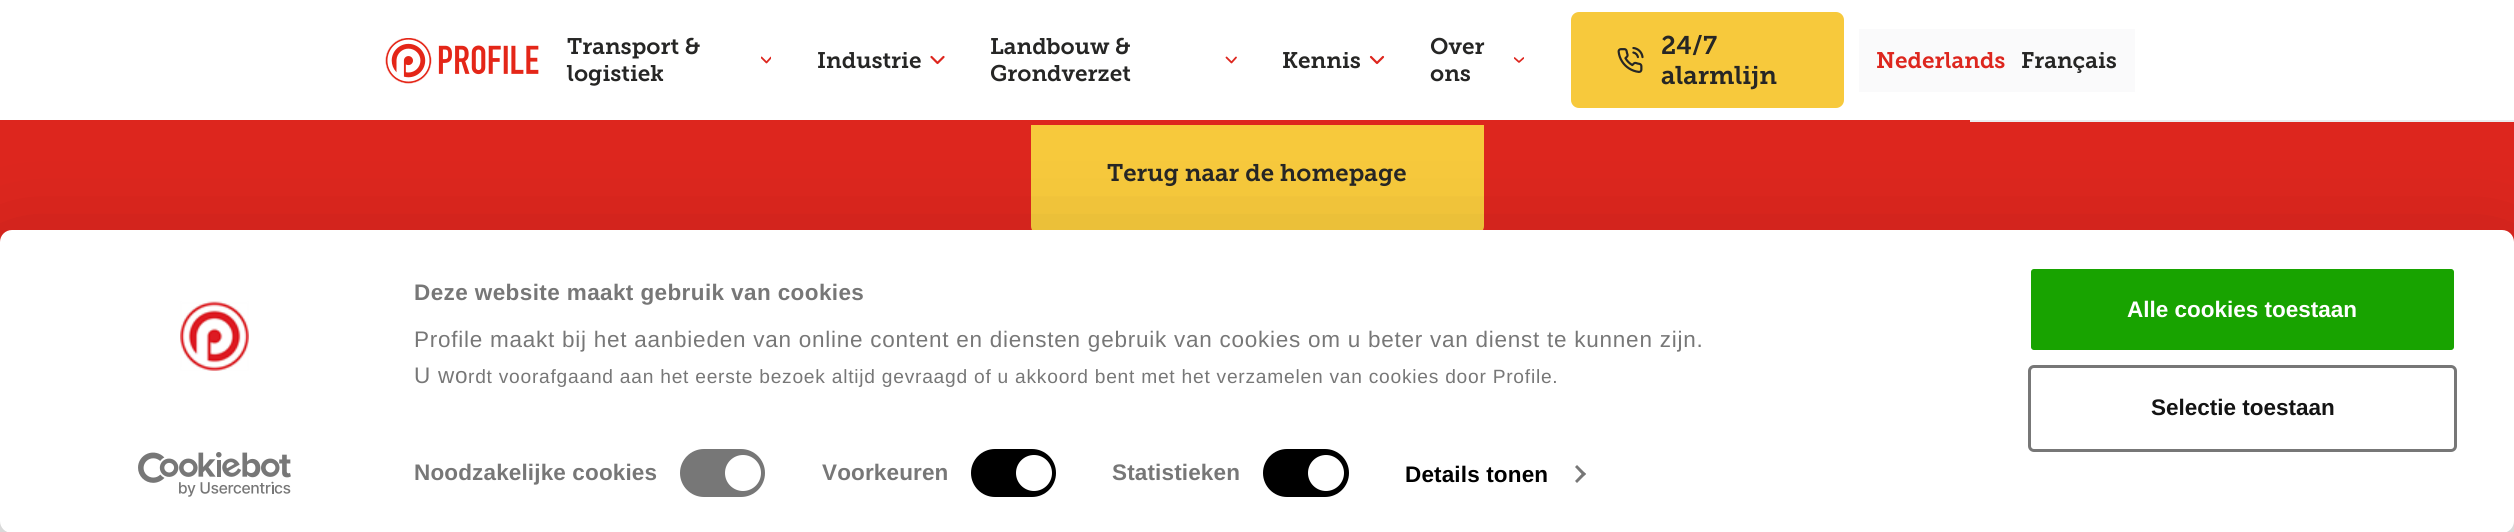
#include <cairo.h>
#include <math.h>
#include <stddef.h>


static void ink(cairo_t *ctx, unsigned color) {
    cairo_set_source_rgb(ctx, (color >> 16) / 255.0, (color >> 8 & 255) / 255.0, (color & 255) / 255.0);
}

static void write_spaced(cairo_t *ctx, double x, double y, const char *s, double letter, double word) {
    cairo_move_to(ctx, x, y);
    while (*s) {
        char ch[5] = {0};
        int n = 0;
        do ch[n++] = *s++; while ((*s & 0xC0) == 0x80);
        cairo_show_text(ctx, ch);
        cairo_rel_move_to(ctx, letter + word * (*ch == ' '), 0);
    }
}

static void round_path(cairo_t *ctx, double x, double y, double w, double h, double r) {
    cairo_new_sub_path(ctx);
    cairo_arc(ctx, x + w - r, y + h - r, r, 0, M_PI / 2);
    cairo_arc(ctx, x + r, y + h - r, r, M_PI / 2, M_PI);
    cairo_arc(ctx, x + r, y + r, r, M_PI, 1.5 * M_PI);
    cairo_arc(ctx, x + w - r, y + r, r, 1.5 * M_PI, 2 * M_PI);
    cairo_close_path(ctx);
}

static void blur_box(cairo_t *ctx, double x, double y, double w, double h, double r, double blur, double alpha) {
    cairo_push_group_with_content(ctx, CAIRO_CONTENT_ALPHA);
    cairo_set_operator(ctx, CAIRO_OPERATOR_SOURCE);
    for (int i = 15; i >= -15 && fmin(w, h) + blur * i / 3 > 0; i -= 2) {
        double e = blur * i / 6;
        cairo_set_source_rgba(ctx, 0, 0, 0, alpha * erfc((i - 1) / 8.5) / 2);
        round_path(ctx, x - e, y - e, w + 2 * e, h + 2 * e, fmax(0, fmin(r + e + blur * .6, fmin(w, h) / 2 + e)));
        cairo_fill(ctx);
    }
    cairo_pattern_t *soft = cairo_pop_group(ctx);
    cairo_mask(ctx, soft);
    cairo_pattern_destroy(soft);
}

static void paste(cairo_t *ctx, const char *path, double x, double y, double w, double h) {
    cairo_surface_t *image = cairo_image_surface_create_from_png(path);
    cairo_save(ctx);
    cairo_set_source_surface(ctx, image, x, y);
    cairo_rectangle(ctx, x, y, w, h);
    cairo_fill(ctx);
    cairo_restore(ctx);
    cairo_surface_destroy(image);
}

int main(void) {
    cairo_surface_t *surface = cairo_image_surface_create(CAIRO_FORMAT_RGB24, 2514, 532);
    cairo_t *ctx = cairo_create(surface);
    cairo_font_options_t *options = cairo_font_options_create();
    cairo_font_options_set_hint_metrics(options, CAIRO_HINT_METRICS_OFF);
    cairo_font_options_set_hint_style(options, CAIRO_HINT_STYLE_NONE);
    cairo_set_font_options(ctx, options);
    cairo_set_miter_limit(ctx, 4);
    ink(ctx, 0xFFFFFF);
    cairo_paint(ctx);
    ink(ctx, 0xDD261E);
    cairo_rectangle(ctx, 0, 122, 2514, 120);
    cairo_fill(ctx);
    ink(ctx, 0xF7C93C);
    round_path(ctx, 1032, 115, 451, 118, 7);
    cairo_fill_preserve(ctx);
    cairo_stroke(ctx);
    ink(ctx, 0xFFFFFF);
    cairo_rectangle(ctx, 1031, 114, 453, 6);
    cairo_fill(ctx);
    ink(ctx, 0xEBECED);
    cairo_rectangle(ctx, 1970, 120, 544, 2);
    cairo_fill(ctx);
    paste(ctx, "media/1.png", 385, 38, 154, 46);
    cairo_select_font_face(ctx, "Museo Slab", CAIRO_FONT_SLANT_NORMAL, CAIRO_FONT_WEIGHT_NORMAL);
    cairo_set_font_size(ctx, 22.5);
    ink(ctx, 0x262625);
    cairo_move_to(ctx, 567, 54);
    cairo_show_text(ctx, "Transport &");
    cairo_save(ctx);
    cairo_rectangle(ctx, 761, 56, 10, 9);
    cairo_clip(ctx);
    cairo_new_path(ctx);
    cairo_move_to(ctx, 771, 57.5);
    cairo_line_to(ctx, 766.5, 62.5);
    cairo_line_to(ctx, 761.5, 57.5);
    ink(ctx, 0xDD261E);
    cairo_set_line_width(ctx, 1.8);
    cairo_set_line_cap(ctx, CAIRO_LINE_CAP_ROUND);
    cairo_set_line_join(ctx, CAIRO_LINE_JOIN_ROUND);
    cairo_stroke(ctx);
    cairo_restore(ctx);
    cairo_move_to(ctx, 567, 81);
    cairo_show_text(ctx, "logistiek");
    cairo_move_to(ctx, 817, 68);
    cairo_show_text(ctx, "Industrie");
    cairo_new_path(ctx);
    cairo_move_to(ctx, 943.5, 57);
    cairo_line_to(ctx, 937.5, 63);
    cairo_line_to(ctx, 931.5, 57);
    ink(ctx, 0xDD261E);
    cairo_set_line_width(ctx, 2.2);
    cairo_set_line_cap(ctx, CAIRO_LINE_CAP_ROUND);
    cairo_set_line_join(ctx, CAIRO_LINE_JOIN_ROUND);
    cairo_stroke(ctx);
    ink(ctx, 0x262625);
    cairo_move_to(ctx, 990, 54);
    cairo_show_text(ctx, "Landbouw &");
    cairo_new_path(ctx);
    cairo_move_to(ctx, 1236, 57.5);
    cairo_line_to(ctx, 1231.5, 62.5);
    cairo_line_to(ctx, 1226.5, 57.5);
    ink(ctx, 0xDD261E);
    cairo_set_line_width(ctx, 1.8);
    cairo_stroke(ctx);
    ink(ctx, 0x262625);
    cairo_move_to(ctx, 990, 81);
    cairo_show_text(ctx, "Grondverzet");
    cairo_move_to(ctx, 1282, 68);
    cairo_show_text(ctx, "Kennis");
    cairo_new_path(ctx);
    cairo_move_to(ctx, 1383, 57);
    cairo_line_to(ctx, 1377, 63);
    cairo_line_to(ctx, 1371, 57);
    ink(ctx, 0xDD261E);
    cairo_set_line_width(ctx, 2.2);
    cairo_stroke(ctx);
    ink(ctx, 0x262625);
    cairo_move_to(ctx, 1430, 54);
    cairo_show_text(ctx, "Over");
    cairo_save(ctx);
    cairo_rectangle(ctx, 1514, 56, 10, 9);
    cairo_clip(ctx);
    cairo_new_path(ctx);
    cairo_move_to(ctx, 1523.5, 58);
    cairo_line_to(ctx, 1519, 62);
    cairo_line_to(ctx, 1514.5, 58);
    ink(ctx, 0xDD261E);
    cairo_set_line_width(ctx, 1.7);
    cairo_stroke(ctx);
    cairo_restore(ctx);
    cairo_move_to(ctx, 1430, 81);
    cairo_show_text(ctx, "ons");
    ink(ctx, 0xF7C93C);
    round_path(ctx, 1572.5, 13.5, 270, 93, 6.5);
    cairo_fill_preserve(ctx);
    cairo_set_line_width(ctx, 3);
    cairo_set_line_cap(ctx, CAIRO_LINE_CAP_BUTT);
    cairo_set_line_join(ctx, CAIRO_LINE_JOIN_MITER);
    cairo_stroke(ctx);
    paste(ctx, "media/2.png", 1617, 47, 27, 26);
    cairo_set_font_size(ctx, 25.5);
    ink(ctx, 0x262625);
    cairo_move_to(ctx, 1661, 54);
    cairo_show_text(ctx, "24/7");
    cairo_move_to(ctx, 1661, 84);
    cairo_show_text(ctx, "alarmlijn");
    ink(ctx, 0xFAFAFB);
    cairo_rectangle(ctx, 1859, 29, 276, 63);
    cairo_fill(ctx);
    cairo_set_font_size(ctx, 22.5);
    ink(ctx, 0xDD261E);
    cairo_move_to(ctx, 1876, 68);
    cairo_show_text(ctx, "Nederlands");
    ink(ctx, 0x262625);
    cairo_move_to(ctx, 2021, 68);
    cairo_show_text(ctx, "Français");
    ink(ctx, 0xDD261E);
    cairo_rectangle(ctx, 0, 120, 1970, 5);
    cairo_fill(ctx);
    cairo_set_font_size(ctx, 24);
    ink(ctx, 0x262625);
    cairo_move_to(ctx, 1107, 181);
    cairo_show_text(ctx, "Terug naar de homepage");
    ink(ctx, 0x000000);
    blur_box(ctx, 0, 275, 2514, 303, 12, 52.5, 0.3);
    ink(ctx, 0xFFFFFF);
    round_path(ctx, 0, 230, 2514, 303, 12);
    cairo_fill(ctx);
    paste(ctx, "media/3.png", 180, 301, 69, 70);
    paste(ctx, "media/4.png", 138, 452, 153, 45);
    cairo_select_font_face(ctx, "Liberation Sans", CAIRO_FONT_SLANT_NORMAL, CAIRO_FONT_WEIGHT_BOLD);
    cairo_set_font_size(ctx, 22.5);
    ink(ctx, 0x777777);
    write_spaced(ctx, 414, 300, "Deze website maakt gebruik van cookies", 0.4, 0);
    cairo_select_font_face(ctx, "Liberation Sans", CAIRO_FONT_SLANT_NORMAL, CAIRO_FONT_WEIGHT_NORMAL);
    write_spaced(ctx, 414, 347, "Profile maakt bij het aanbieden van online content en diensten gebruik van cookies om u beter van dienst te kunnen zijn.", 0.75, 0);
    write_spaced(ctx, 414, 383, "U wo", 0.75, 0);
    cairo_set_font_size(ctx, 19.2);
    write_spaced(ctx, 468, 383, "rdt voorafgaand aan het eerste bezoek altijd gevraagd of u akkoord bent met het verzamelen van cookies door Profile.", 0.75, 0);
    cairo_select_font_face(ctx, "Liberation Sans", CAIRO_FONT_SLANT_NORMAL, CAIRO_FONT_WEIGHT_BOLD);
    cairo_set_font_size(ctx, 22.5);
    write_spaced(ctx, 414, 480, "Noodzakelijke cookies", 0.15, 0);
    round_path(ctx, 680, 449, 85, 48, 24);
    cairo_fill(ctx);
    ink(ctx, 0xFFFFFF);
    cairo_arc(ctx, 743, 473, 18, 0, 2 * M_PI);
    cairo_fill(ctx);
    ink(ctx, 0x777777);
    write_spaced(ctx, 822, 480, "Voorkeuren", 0.15, 0);
    ink(ctx, 0x000000);
    round_path(ctx, 971, 449, 85, 48, 24);
    cairo_fill(ctx);
    ink(ctx, 0xFFFFFF);
    cairo_arc(ctx, 1034, 473, 18, 0, 2 * M_PI);
    cairo_fill(ctx);
    ink(ctx, 0x777777);
    write_spaced(ctx, 1112, 480, "Statistieken", 0.15, 0);
    ink(ctx, 0x000000);
    round_path(ctx, 1263, 449, 86, 48, 24);
    cairo_fill(ctx);
    ink(ctx, 0xFFFFFF);
    cairo_arc(ctx, 1326, 473, 18, 0, 2 * M_PI);
    cairo_fill(ctx);
    ink(ctx, 0x000000);
    write_spaced(ctx, 1405, 482, "Details tonen", 0.15, 0);
    ink(ctx, 0x777777);
    cairo_new_path(ctx);
    cairo_move_to(ctx, 1577, 465);
    cairo_line_to(ctx, 1586, 474);
    cairo_line_to(ctx, 1583.5, 476);
    cairo_line_to(ctx, 1575, 467);
    cairo_close_path(ctx);
    cairo_fill(ctx);
    cairo_new_path(ctx);
    cairo_move_to(ctx, 1583.5, 472);
    cairo_line_to(ctx, 1586, 474);
    cairo_line_to(ctx, 1577, 483);
    cairo_line_to(ctx, 1575, 481);
    cairo_close_path(ctx);
    cairo_fill(ctx);
    ink(ctx, 0x18A300);
    round_path(ctx, 2029.5, 267.5, 426, 84, 4.5);
    cairo_fill_preserve(ctx);
    ink(ctx, 0xFFFFFF);
    cairo_stroke(ctx);
    cairo_move_to(ctx, 2127, 317);
    cairo_show_text(ctx, "Alle cookies toestaan");
    round_path(ctx, 2029.5, 366.5, 426, 84, 4.5);
    ink(ctx, 0x777777);
    cairo_stroke(ctx);
    ink(ctx, 0x141414);
    cairo_move_to(ctx, 2151, 415);
    cairo_show_text(ctx, "Selectie toestaan");
    cairo_surface_write_to_png(surface, "image.png");
    cairo_font_options_destroy(options);
    cairo_destroy(ctx);
    cairo_surface_destroy(surface);
    return 0;
}
